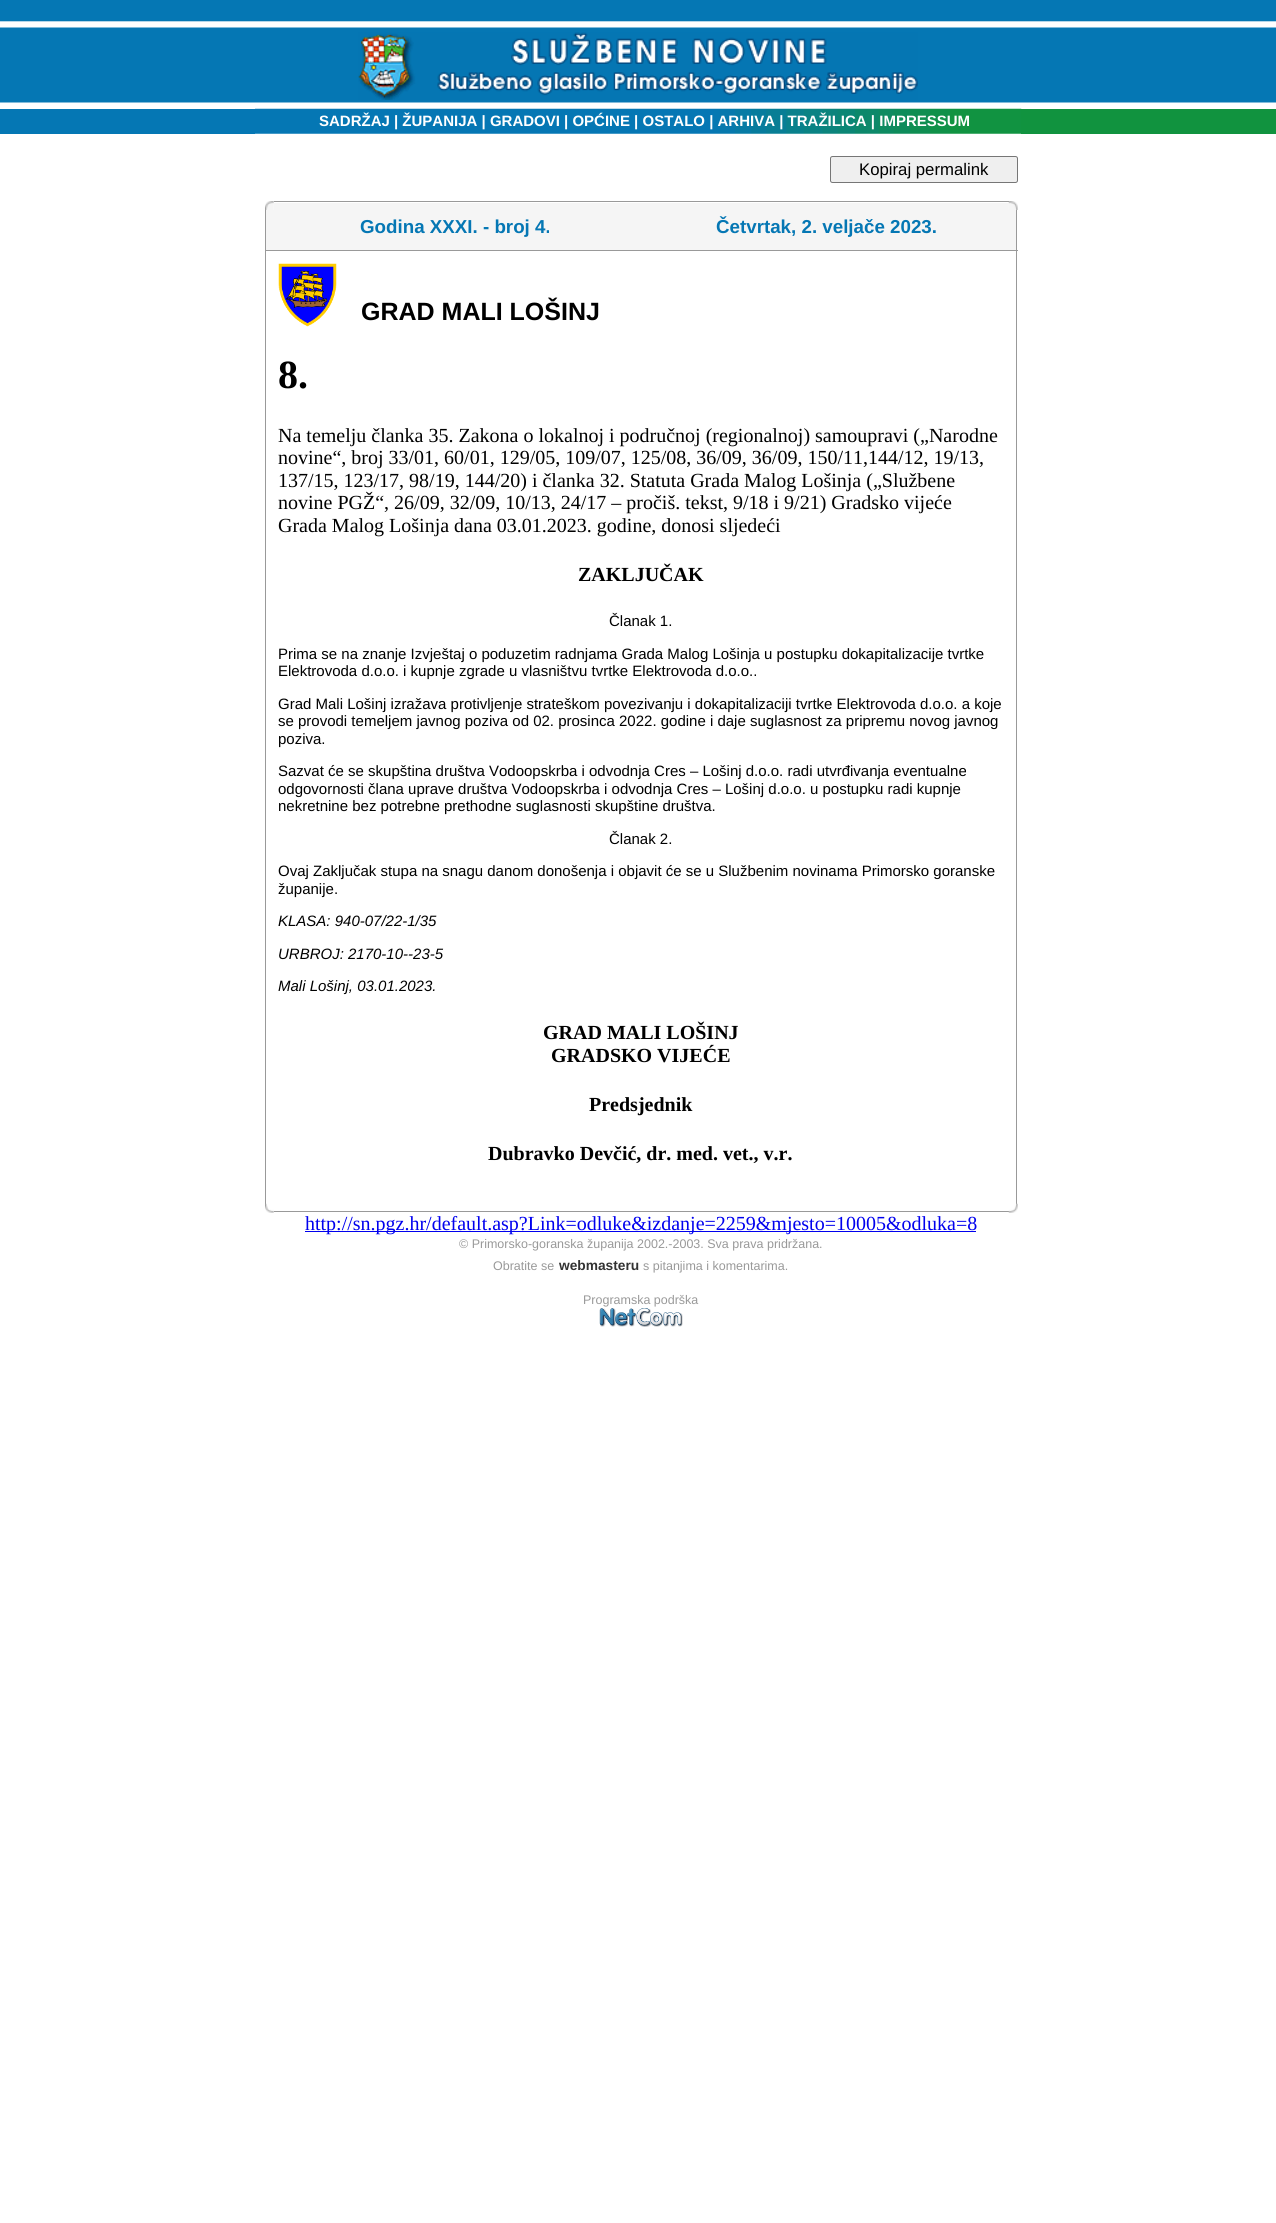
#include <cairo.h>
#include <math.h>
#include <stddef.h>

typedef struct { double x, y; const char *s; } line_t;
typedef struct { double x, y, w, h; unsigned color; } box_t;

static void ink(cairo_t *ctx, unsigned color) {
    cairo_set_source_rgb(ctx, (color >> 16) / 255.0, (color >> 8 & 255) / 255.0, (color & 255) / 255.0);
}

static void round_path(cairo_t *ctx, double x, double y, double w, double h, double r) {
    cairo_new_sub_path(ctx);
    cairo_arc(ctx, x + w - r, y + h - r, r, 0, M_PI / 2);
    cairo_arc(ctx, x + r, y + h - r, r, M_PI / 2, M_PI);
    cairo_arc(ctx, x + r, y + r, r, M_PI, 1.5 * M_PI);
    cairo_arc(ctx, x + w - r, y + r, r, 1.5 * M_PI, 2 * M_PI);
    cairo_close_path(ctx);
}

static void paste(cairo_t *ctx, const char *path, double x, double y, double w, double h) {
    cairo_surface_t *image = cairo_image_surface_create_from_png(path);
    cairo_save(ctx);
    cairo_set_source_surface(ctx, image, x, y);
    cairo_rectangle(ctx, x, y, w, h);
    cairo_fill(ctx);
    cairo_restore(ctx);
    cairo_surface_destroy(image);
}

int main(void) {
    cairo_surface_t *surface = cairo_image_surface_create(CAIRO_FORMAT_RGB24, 1276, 2223);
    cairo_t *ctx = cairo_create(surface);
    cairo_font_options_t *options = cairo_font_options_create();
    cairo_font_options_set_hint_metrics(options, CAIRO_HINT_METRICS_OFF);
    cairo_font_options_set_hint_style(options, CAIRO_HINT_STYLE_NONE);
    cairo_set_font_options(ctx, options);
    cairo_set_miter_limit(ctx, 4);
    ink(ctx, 0xFFFFFF);
    cairo_paint(ctx);
    paste(ctx, "media/1.png", 0, 0, 1276, 103);
    paste(ctx, "media/2.png", 358, 32, 560, 68);
    ink(ctx, 0x0577B4);
    cairo_rectangle(ctx, 0, 109, 255, 25);
    cairo_fill(ctx);
    paste(ctx, "media/3.png", 255, 108, 767, 26);
    cairo_select_font_face(ctx, "Liberation Sans", CAIRO_FONT_SLANT_NORMAL, CAIRO_FONT_WEIGHT_BOLD);
    cairo_set_font_size(ctx, 15);
    ink(ctx, 0xFFFFFF);
    cairo_move_to(ctx, 319, 126);
    cairo_show_text(ctx, "SADRŽAJ | ŽUPANIJA | GRADOVI | OPĆINE | OSTALO | ARHIVA | TRAŽILICA | IMPRESSUM");
    ink(ctx, 0x11933F);
    cairo_rectangle(ctx, 1021, 109, 255, 25);
    cairo_fill(ctx);
    ink(ctx, 0xEFEFEF);
    round_path(ctx, 830.5, 156.5, 187, 26, 2);
    cairo_fill_preserve(ctx);
    ink(ctx, 0x767676);
    cairo_set_line_width(ctx, 1);
    cairo_stroke(ctx);
    cairo_select_font_face(ctx, "Liberation Sans", CAIRO_FONT_SLANT_NORMAL, CAIRO_FONT_WEIGHT_NORMAL);
    cairo_set_font_size(ctx, 16.75);
    ink(ctx, 0x000000);
    cairo_move_to(ctx, 859, 175);
    cairo_show_text(ctx, "Kopiraj permalink");
    paste(ctx, "media/4.png", 265, 201, 9, 9);
    ink(ctx, 0x999999);
    cairo_rectangle(ctx, 274, 201, 735, 1);
    cairo_fill(ctx);
    ink(ctx, 0xF5F5F5);
    cairo_rectangle(ctx, 274, 203, 735, 7);
    cairo_fill(ctx);
    paste(ctx, "media/5.png", 1008, 201, 10, 9);
    ink(ctx, 0x999999);
    cairo_rectangle(ctx, 265, 210, 1, 40);
    cairo_fill(ctx);
    ink(ctx, 0xF5F5F5);
    cairo_rectangle(ctx, 266, 210, 750, 40);
    cairo_fill(ctx);
    cairo_select_font_face(ctx, "Liberation Sans", CAIRO_FONT_SLANT_NORMAL, CAIRO_FONT_WEIGHT_BOLD);
    cairo_set_font_size(ctx, 18.75);
    ink(ctx, 0x0577B4);
    cairo_move_to(ctx, 360, 233);
    cairo_show_text(ctx, "Godina XXXI. - broj 4.");
    cairo_move_to(ctx, 716, 233);
    cairo_show_text(ctx, "Četvrtak, 2. veljače 2023.");
    {
        static const box_t items[] = {
            {1016, 210, 1, 40, 0x999999},
            {265, 250, 753, 1, 0x999999},
            {265, 251, 1, 953, 0x999999},
        };
        for (size_t i = 0; i < sizeof items / sizeof *items; i++) {
            ink(ctx, items[i].color);
            cairo_rectangle(ctx, items[i].x, items[i].y, items[i].w, items[i].h);
            cairo_fill(ctx);
        }
    }
    paste(ctx, "media/6.png", 278, 263, 59, 64);
    cairo_set_font_size(ctx, 25);
    ink(ctx, 0x000000);
    cairo_move_to(ctx, 361, 320);
    cairo_show_text(ctx, "GRAD MALI LOŠINJ");
    cairo_select_font_face(ctx, "Liberation Serif", CAIRO_FONT_SLANT_NORMAL, CAIRO_FONT_WEIGHT_BOLD);
    cairo_set_font_size(ctx, 40);
    cairo_move_to(ctx, 278, 388);
    cairo_show_text(ctx, "8.");
    cairo_select_font_face(ctx, "Liberation Serif", CAIRO_FONT_SLANT_NORMAL, CAIRO_FONT_WEIGHT_NORMAL);
    cairo_set_font_size(ctx, 20);
    {
        static const line_t items[] = {
            {278, 442, "Na temelju članka 35. Zakona o lokalnoj i područnoj (regionalnoj) samoupravi („Narodne"},
            {278, 464, "novine“, broj 33/01, 60/01, 129/05, 109/07, 125/08, 36/09, 36/09, 150/11,144/12, 19/13,"},
            {278, 487, "137/15, 123/17, 98/19, 144/20) i članka 32. Statuta Grada Malog Lošinja („Službene"},
            {278, 509, "novine PGŽ“, 26/09, 32/09, 10/13, 24/17 – pročiš. tekst, 9/18 i 9/21) Gradsko vijeće"},
            {278, 532, "Grada Malog Lošinja dana 03.01.2023. godine, donosi sljedeći"},
        };
        for (size_t i = 0; i < sizeof items / sizeof *items; i++) {
            cairo_move_to(ctx, items[i].x, items[i].y);
            cairo_show_text(ctx, items[i].s);
        }
    }
    cairo_select_font_face(ctx, "Liberation Serif", CAIRO_FONT_SLANT_NORMAL, CAIRO_FONT_WEIGHT_BOLD);
    cairo_move_to(ctx, 578, 581);
    cairo_show_text(ctx, "ZAKLJUČAK");
    cairo_select_font_face(ctx, "Liberation Sans", CAIRO_FONT_SLANT_NORMAL, CAIRO_FONT_WEIGHT_NORMAL);
    cairo_set_font_size(ctx, 15);
    {
        static const line_t items[] = {
            {609, 626, "Članak 1."},
            {278, 659, "Prima se na znanje Izvještaj o poduzetim radnjama Grada Malog Lošinja u postupku dokapitalizacije tvrtke"},
            {278, 676, "Elektrovoda d.o.o. i kupnje zgrade u vlasništvu tvrtke Elektrovoda d.o.o.."},
            {278, 709, "Grad Mali Lošinj izražava protivljenje strateškom povezivanju i dokapitalizaciji tvrtke Elektrovoda d.o.o. a koje"},
            {278, 726, "se provodi temeljem javnog poziva od 02. prosinca 2022. godine i daje suglasnost za pripremu novog javnog"},
            {278, 744, "poziva."},
            {278, 776, "Sazvat će se skupština društva Vodoopskrba i odvodnja Cres – Lošinj d.o.o. radi utvrđivanja eventualne"},
            {278, 794, "odgovornosti člana uprave društva Vodoopskrba i odvodnja Cres – Lošinj d.o.o. u postupku radi kupnje"},
            {278, 811, "nekretnine bez potrebne prethodne suglasnosti skupštine društva."},
            {609, 844, "Članak 2."},
            {278, 876, "Ovaj Zaključak stupa na snagu danom donošenja i objavit će se u Službenim novinama Primorsko goranske"},
            {278, 894, "županije."},
        };
        for (size_t i = 0; i < sizeof items / sizeof *items; i++) {
            cairo_move_to(ctx, items[i].x, items[i].y);
            cairo_show_text(ctx, items[i].s);
        }
    }
    cairo_select_font_face(ctx, "Liberation Sans", CAIRO_FONT_SLANT_ITALIC, CAIRO_FONT_WEIGHT_NORMAL);
    {
        static const line_t items[] = {
            {278, 926, "KLASA: 940-07/22-1/35"},
            {278, 959, "URBROJ: 2170-10--23-5"},
            {278, 991, "Mali Lošinj, 03.01.2023."},
        };
        for (size_t i = 0; i < sizeof items / sizeof *items; i++) {
            cairo_move_to(ctx, items[i].x, items[i].y);
            cairo_show_text(ctx, items[i].s);
        }
    }
    cairo_select_font_face(ctx, "Liberation Serif", CAIRO_FONT_SLANT_NORMAL, CAIRO_FONT_WEIGHT_BOLD);
    cairo_set_font_size(ctx, 20);
    {
        static const line_t items[] = {
            {543, 1039, "GRAD MALI LOŠINJ"},
            {551, 1062, "GRADSKO VIJEĆE"},
            {589, 1111, "Predsjednik"},
            {488, 1160, "Dubravko Devčić, dr. med. vet., v.r."},
        };
        for (size_t i = 0; i < sizeof items / sizeof *items; i++) {
            cairo_move_to(ctx, items[i].x, items[i].y);
            cairo_show_text(ctx, items[i].s);
        }
    }
    ink(ctx, 0x999999);
    cairo_rectangle(ctx, 1016, 251, 1, 953);
    cairo_fill(ctx);
    paste(ctx, "media/7.png", 265, 1203, 9, 10);
    cairo_rectangle(ctx, 274, 1211, 735, 1);
    cairo_fill(ctx);
    paste(ctx, "media/8.png", 1008, 1203, 10, 10);
    ink(ctx, 0x0000EE);
    cairo_rectangle(ctx, 305, 1231, 671, 1);
    cairo_fill(ctx);
    cairo_select_font_face(ctx, "Liberation Serif", CAIRO_FONT_SLANT_NORMAL, CAIRO_FONT_WEIGHT_NORMAL);
    cairo_move_to(ctx, 305, 1230);
    cairo_show_text(ctx, "http://sn.pgz.hr/default.asp?Link=odluke&izdanje=2259&mjesto=10005&odluka=8");
    cairo_select_font_face(ctx, "Liberation Sans", CAIRO_FONT_SLANT_NORMAL, CAIRO_FONT_WEIGHT_NORMAL);
    cairo_set_font_size(ctx, 12.5);
    ink(ctx, 0x999999);
    cairo_move_to(ctx, 459, 1248);
    cairo_show_text(ctx, "© Primorsko-goranska županija 2002.-2003. Sva prava pridržana.");
    cairo_move_to(ctx, 493, 1270);
    cairo_show_text(ctx, "Obratite se");
    cairo_select_font_face(ctx, "Liberation Sans", CAIRO_FONT_SLANT_NORMAL, CAIRO_FONT_WEIGHT_BOLD);
    cairo_set_font_size(ctx, 13.75);
    ink(ctx, 0x333333);
    cairo_move_to(ctx, 559, 1270);
    cairo_show_text(ctx, "webmasteru");
    cairo_select_font_face(ctx, "Liberation Sans", CAIRO_FONT_SLANT_NORMAL, CAIRO_FONT_WEIGHT_NORMAL);
    cairo_set_font_size(ctx, 12.5);
    ink(ctx, 0x999999);
    cairo_move_to(ctx, 643, 1270);
    cairo_show_text(ctx, "s pitanjima i komentarima.");
    cairo_move_to(ctx, 583, 1304);
    cairo_show_text(ctx, "Programska podrška");
    paste(ctx, "media/9.png", 599, 1308, 84, 19);
    cairo_surface_write_to_png(surface, "image.png");
    cairo_font_options_destroy(options);
    cairo_destroy(ctx);
    cairo_surface_destroy(surface);
    return 0;
}
